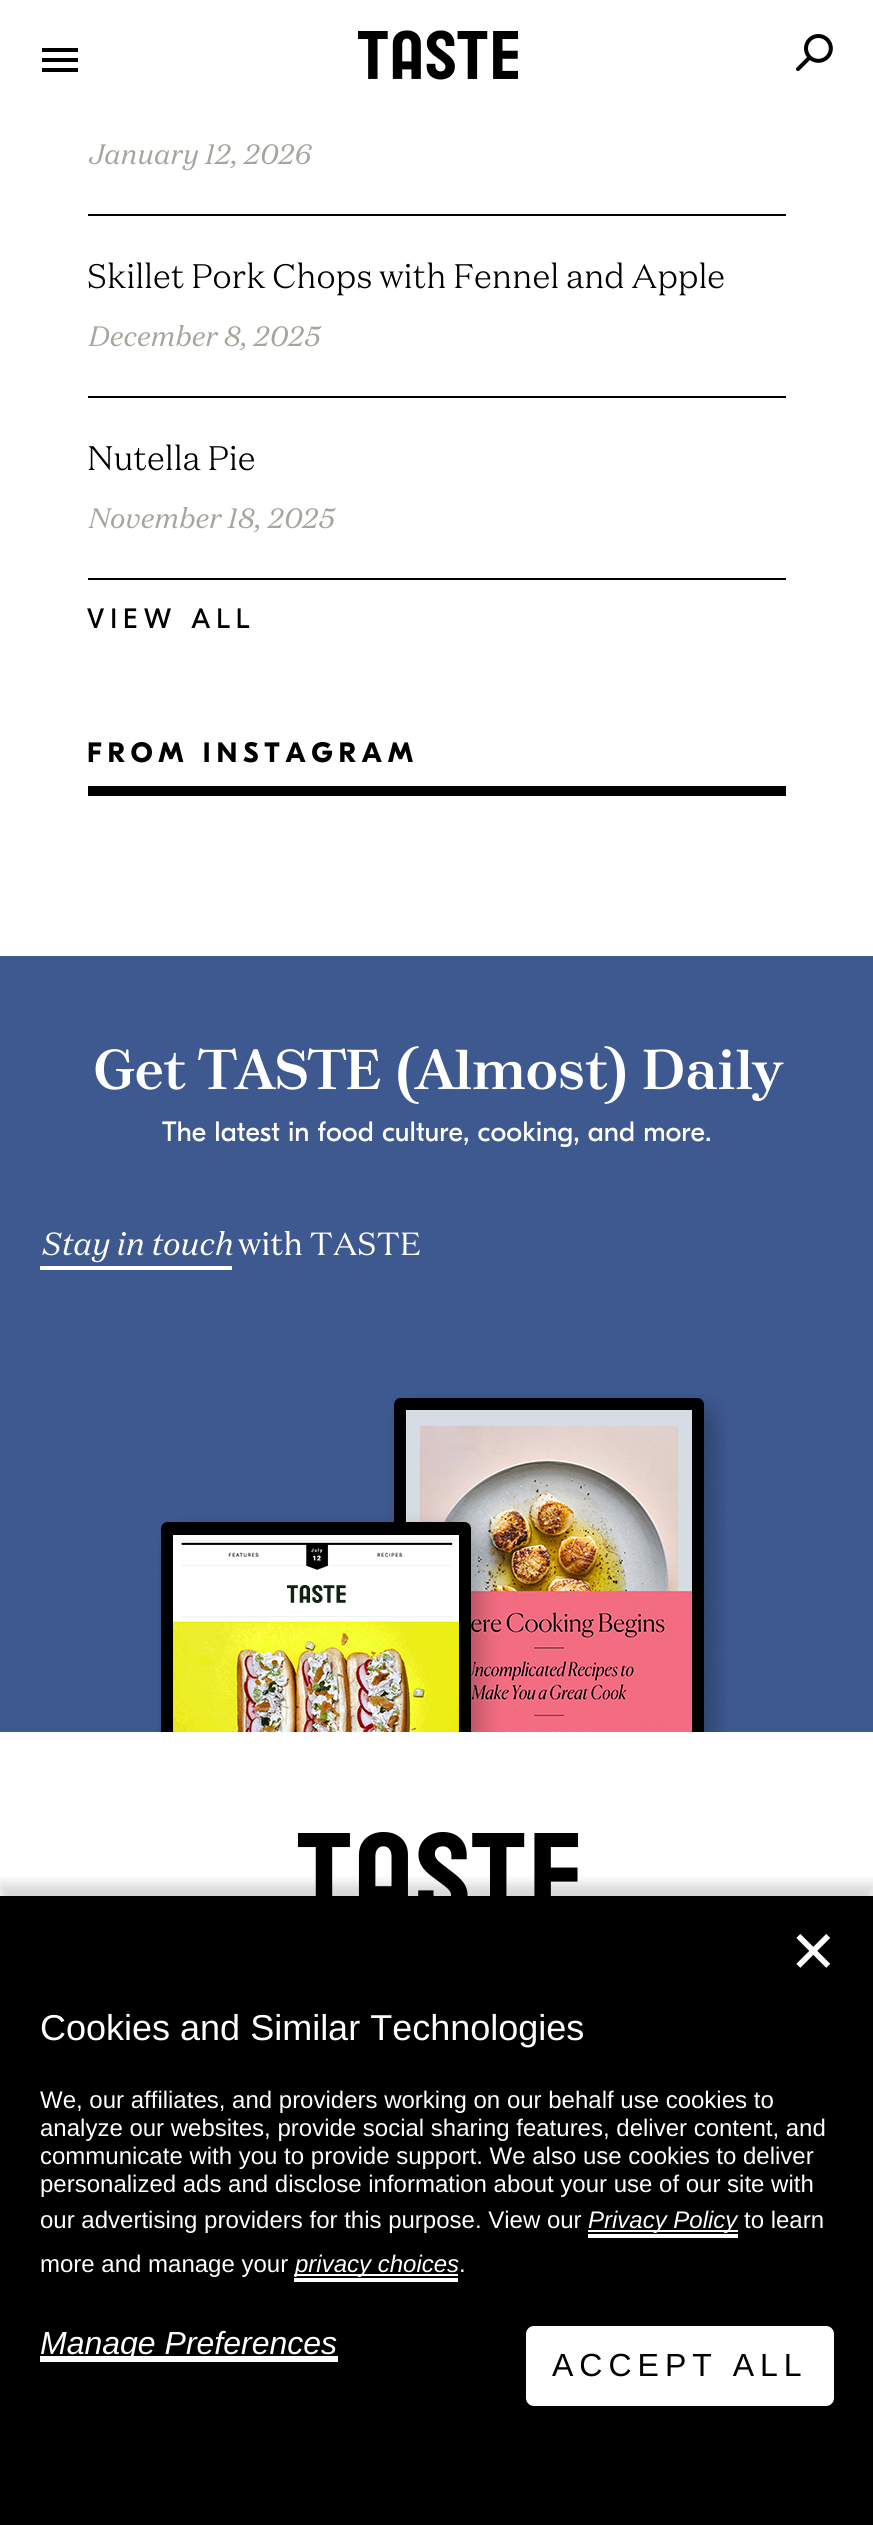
#include <cairo.h>
#include <math.h>
#include <stddef.h>

typedef struct { double x, y; const char *s; } line_t;
typedef struct { double x, y, w, h; unsigned color; } box_t;

static void ink(cairo_t *ctx, unsigned color) {
    cairo_set_source_rgb(ctx, (color >> 16) / 255.0, (color >> 8 & 255) / 255.0, (color & 255) / 255.0);
}

static void write_spaced(cairo_t *ctx, double x, double y, const char *s, double letter, double word) {
    cairo_move_to(ctx, x, y);
    while (*s) {
        char ch[5] = {0};
        int n = 0;
        do ch[n++] = *s++; while ((*s & 0xC0) == 0x80);
        cairo_show_text(ctx, ch);
        cairo_rel_move_to(ctx, letter + word * (*ch == ' '), 0);
    }
}

static void round_path(cairo_t *ctx, double x, double y, double w, double h, double r) {
    cairo_new_sub_path(ctx);
    cairo_arc(ctx, x + w - r, y + h - r, r, 0, M_PI / 2);
    cairo_arc(ctx, x + r, y + h - r, r, M_PI / 2, M_PI);
    cairo_arc(ctx, x + r, y + r, r, M_PI, 1.5 * M_PI);
    cairo_arc(ctx, x + w - r, y + r, r, 1.5 * M_PI, 2 * M_PI);
    cairo_close_path(ctx);
}

static void blur_box(cairo_t *ctx, double x, double y, double w, double h, double r, double blur, double alpha) {
    cairo_push_group_with_content(ctx, CAIRO_CONTENT_ALPHA);
    cairo_set_operator(ctx, CAIRO_OPERATOR_SOURCE);
    for (int i = 15; i >= -15 && fmin(w, h) + blur * i / 3 > 0; i -= 2) {
        double e = blur * i / 6;
        cairo_set_source_rgba(ctx, 0, 0, 0, alpha * erfc((i - 1) / 8.5) / 2);
        round_path(ctx, x - e, y - e, w + 2 * e, h + 2 * e, fmax(0, fmin(r + e + blur * .6, fmin(w, h) / 2 + e)));
        cairo_fill(ctx);
    }
    cairo_pattern_t *soft = cairo_pop_group(ctx);
    cairo_mask(ctx, soft);
    cairo_pattern_destroy(soft);
}

static void paste(cairo_t *ctx, const char *path, double x, double y, double w, double h) {
    cairo_surface_t *image = cairo_image_surface_create_from_png(path);
    cairo_save(ctx);
    cairo_set_source_surface(ctx, image, x, y);
    cairo_rectangle(ctx, x, y, w, h);
    cairo_fill(ctx);
    cairo_restore(ctx);
    cairo_surface_destroy(image);
}

int main(void) {
    cairo_surface_t *surface = cairo_image_surface_create(CAIRO_FORMAT_RGB24, 873, 2525);
    cairo_t *ctx = cairo_create(surface);
    cairo_font_options_t *options = cairo_font_options_create();
    cairo_font_options_set_hint_metrics(options, CAIRO_HINT_METRICS_OFF);
    cairo_font_options_set_hint_style(options, CAIRO_HINT_STYLE_NONE);
    cairo_set_font_options(ctx, options);
    cairo_set_miter_limit(ctx, 4);
    ink(ctx, 0xFFFFFF);
    cairo_paint(ctx);
    {
        static const box_t items[] = {
            {42, 58, 36, 4, 0x000000},
            {42, 48, 36, 4, 0x000000},
            {42, 68, 36, 4, 0x000000},
        };
        for (size_t i = 0; i < sizeof items / sizeof *items; i++) {
            ink(ctx, items[i].color);
            cairo_rectangle(ctx, items[i].x, items[i].y, items[i].w, items[i].h);
            cairo_fill(ctx);
        }
    }
    paste(ctx, "media/1.png", 358, 30, 160, 50);
    paste(ctx, "media/2.png", 796, 34, 37, 37);
    cairo_rectangle(ctx, 88, 214, 698, 2);
    cairo_fill(ctx);
    cairo_select_font_face(ctx, "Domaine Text", CAIRO_FONT_SLANT_ITALIC, CAIRO_FONT_WEIGHT_NORMAL);
    cairo_set_font_size(ctx, 28);
    ink(ctx, 0xA7A59B);
    cairo_move_to(ctx, 87, 164);
    cairo_show_text(ctx, "January 12, 2026");
    ink(ctx, 0x000000);
    cairo_rectangle(ctx, 88, 396, 698, 2);
    cairo_fill(ctx);
    cairo_select_font_face(ctx, "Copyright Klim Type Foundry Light", CAIRO_FONT_SLANT_NORMAL, CAIRO_FONT_WEIGHT_NORMAL);
    cairo_set_font_size(ctx, 34);
    cairo_move_to(ctx, 87, 288);
    cairo_show_text(ctx, "Skillet Pork Chops with Fennel and Apple");
    cairo_select_font_face(ctx, "Domaine Text", CAIRO_FONT_SLANT_ITALIC, CAIRO_FONT_WEIGHT_NORMAL);
    cairo_set_font_size(ctx, 28);
    ink(ctx, 0xA7A59B);
    cairo_move_to(ctx, 87, 346);
    cairo_show_text(ctx, "December 8, 2025");
    ink(ctx, 0x000000);
    cairo_rectangle(ctx, 88, 578, 698, 2);
    cairo_fill(ctx);
    cairo_select_font_face(ctx, "Copyright Klim Type Foundry Light", CAIRO_FONT_SLANT_NORMAL, CAIRO_FONT_WEIGHT_NORMAL);
    cairo_set_font_size(ctx, 34);
    cairo_move_to(ctx, 87, 470);
    cairo_show_text(ctx, "Nutella Pie");
    cairo_select_font_face(ctx, "Domaine Text", CAIRO_FONT_SLANT_ITALIC, CAIRO_FONT_WEIGHT_NORMAL);
    cairo_set_font_size(ctx, 28);
    ink(ctx, 0xA7A59B);
    cairo_move_to(ctx, 87, 528);
    cairo_show_text(ctx, "November 18, 2025");
    cairo_select_font_face(ctx, "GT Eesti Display", CAIRO_FONT_SLANT_NORMAL, CAIRO_FONT_WEIGHT_NORMAL);
    ink(ctx, 0x000000);
    write_spaced(ctx, 87, 628, "VIEW ALL", 6, 0);
    cairo_rectangle(ctx, 88, 786, 698, 10);
    cairo_fill(ctx);
    cairo_select_font_face(ctx, "GT Eesti Display", CAIRO_FONT_SLANT_NORMAL, CAIRO_FONT_WEIGHT_BOLD);
    write_spaced(ctx, 87, 762, "FROM INSTAGRAM", 6, 0);
    ink(ctx, 0x3D5990);
    cairo_rectangle(ctx, 0, 956, 873, 776);
    cairo_fill(ctx);
    cairo_select_font_face(ctx, "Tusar", CAIRO_FONT_SLANT_NORMAL, CAIRO_FONT_WEIGHT_BOLD);
    cairo_set_font_size(ctx, 56);
    ink(ctx, 0xFFFFFF);
    cairo_move_to(ctx, 93, 1089);
    cairo_show_text(ctx, "Get TASTE (Almost) Daily");
    cairo_select_font_face(ctx, "GT Eesti Display", CAIRO_FONT_SLANT_NORMAL, CAIRO_FONT_WEIGHT_NORMAL);
    cairo_set_font_size(ctx, 28);
    cairo_move_to(ctx, 162, 1141);
    cairo_show_text(ctx, "The latest in food culture, cooking, and more.");
    cairo_select_font_face(ctx, "Domaine Text", CAIRO_FONT_SLANT_ITALIC, CAIRO_FONT_WEIGHT_NORMAL);
    cairo_set_font_size(ctx, 32);
    cairo_move_to(ctx, 40, 1255);
    cairo_show_text(ctx, "Stay in touch");
    cairo_rectangle(ctx, 40, 1266, 192, 4);
    cairo_fill(ctx);
    cairo_select_font_face(ctx, "Domaine Text", CAIRO_FONT_SLANT_NORMAL, CAIRO_FONT_WEIGHT_NORMAL);
    cairo_move_to(ctx, 238, 1255);
    cairo_show_text(ctx, "with TASTE");
    paste(ctx, "media/3.png", 157, 1394, 570, 338);
    paste(ctx, "media/4.png", 298, 1832, 280, 64);
    ink(ctx, 0x000000);
    blur_box(ctx, 0, 1884, 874, 630, 0, 6, 0.16);
    ink(ctx, 0x000000);
    cairo_rectangle(ctx, 0, 1896, 873, 629);
    cairo_fill(ctx);
    cairo_select_font_face(ctx, "DejaVu Sans", CAIRO_FONT_SLANT_NORMAL, CAIRO_FONT_WEIGHT_NORMAL);
    cairo_set_font_size(ctx, 58);
    ink(ctx, 0xFFFFFF);
    cairo_move_to(ctx, 789, 1972);
    cairo_show_text(ctx, "✕");
    cairo_select_font_face(ctx, "Liberation Sans", CAIRO_FONT_SLANT_NORMAL, CAIRO_FONT_WEIGHT_NORMAL);
    cairo_set_font_size(ctx, 36);
    cairo_move_to(ctx, 40, 2040);
    cairo_show_text(ctx, "Cookies and Similar Technologies");
    cairo_set_font_size(ctx, 24);
    {
        static const line_t items[] = {
            {40, 2108, "We, our affiliates, and providers working on our behalf use cookies to"},
            {40, 2136, "analyze our websites, provide social sharing features, deliver content, and"},
            {40, 2164, "communicate with you to provide support. We also use cookies to deliver"},
            {40, 2192, "personalized ads and disclose information about your use of our site with"},
            {40, 2228, "our advertising providers for this purpose. View our"},
        };
        for (size_t i = 0; i < sizeof items / sizeof *items; i++) {
            cairo_move_to(ctx, items[i].x, items[i].y);
            cairo_show_text(ctx, items[i].s);
        }
    }
    cairo_rectangle(ctx, 588, 2230, 150, 2);
    cairo_fill(ctx);
    cairo_select_font_face(ctx, "Liberation Sans", CAIRO_FONT_SLANT_ITALIC, CAIRO_FONT_WEIGHT_NORMAL);
    cairo_move_to(ctx, 588, 2228);
    cairo_show_text(ctx, "Privacy Policy");
    cairo_rectangle(ctx, 588, 2234, 150, 4);
    cairo_fill(ctx);
    cairo_select_font_face(ctx, "Liberation Sans", CAIRO_FONT_SLANT_NORMAL, CAIRO_FONT_WEIGHT_NORMAL);
    cairo_move_to(ctx, 744, 2228);
    cairo_show_text(ctx, "to learn");
    cairo_move_to(ctx, 40, 2272);
    cairo_show_text(ctx, "more and manage your");
    cairo_rectangle(ctx, 294, 2274, 164, 2);
    cairo_fill(ctx);
    cairo_select_font_face(ctx, "Liberation Sans", CAIRO_FONT_SLANT_ITALIC, CAIRO_FONT_WEIGHT_NORMAL);
    cairo_move_to(ctx, 295, 2272);
    cairo_show_text(ctx, "privacy choices");
    cairo_rectangle(ctx, 294, 2278, 164, 4);
    cairo_fill(ctx);
    cairo_select_font_face(ctx, "Liberation Sans", CAIRO_FONT_SLANT_NORMAL, CAIRO_FONT_WEIGHT_NORMAL);
    cairo_move_to(ctx, 459, 2272);
    cairo_show_text(ctx, ".");
    cairo_rectangle(ctx, 40, 2356, 298, 6);
    cairo_fill(ctx);
    cairo_select_font_face(ctx, "Liberation Sans", CAIRO_FONT_SLANT_ITALIC, CAIRO_FONT_WEIGHT_NORMAL);
    cairo_set_font_size(ctx, 32);
    cairo_move_to(ctx, 40, 2354);
    cairo_show_text(ctx, "Manage Preferences");
    round_path(ctx, 528, 2328, 304, 76, 6);
    cairo_fill_preserve(ctx);
    cairo_set_line_width(ctx, 4);
    cairo_stroke(ctx);
    cairo_select_font_face(ctx, "Liberation Sans", CAIRO_FONT_SLANT_NORMAL, CAIRO_FONT_WEIGHT_NORMAL);
    ink(ctx, 0x000000);
    write_spaced(ctx, 552, 2376, "ACCEPT ALL", 6, 0);
    cairo_surface_write_to_png(surface, "image.png");
    cairo_font_options_destroy(options);
    cairo_destroy(ctx);
    cairo_surface_destroy(surface);
    return 0;
}
